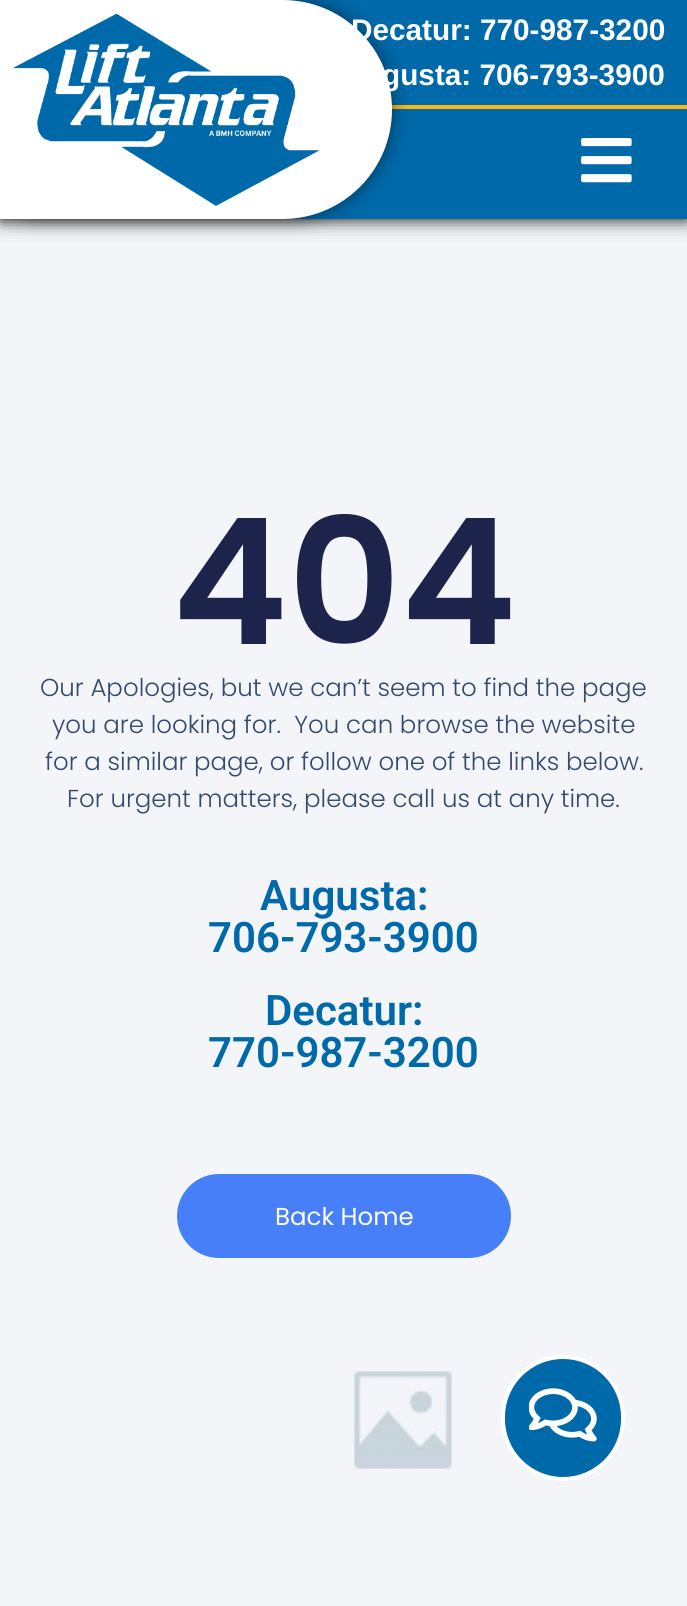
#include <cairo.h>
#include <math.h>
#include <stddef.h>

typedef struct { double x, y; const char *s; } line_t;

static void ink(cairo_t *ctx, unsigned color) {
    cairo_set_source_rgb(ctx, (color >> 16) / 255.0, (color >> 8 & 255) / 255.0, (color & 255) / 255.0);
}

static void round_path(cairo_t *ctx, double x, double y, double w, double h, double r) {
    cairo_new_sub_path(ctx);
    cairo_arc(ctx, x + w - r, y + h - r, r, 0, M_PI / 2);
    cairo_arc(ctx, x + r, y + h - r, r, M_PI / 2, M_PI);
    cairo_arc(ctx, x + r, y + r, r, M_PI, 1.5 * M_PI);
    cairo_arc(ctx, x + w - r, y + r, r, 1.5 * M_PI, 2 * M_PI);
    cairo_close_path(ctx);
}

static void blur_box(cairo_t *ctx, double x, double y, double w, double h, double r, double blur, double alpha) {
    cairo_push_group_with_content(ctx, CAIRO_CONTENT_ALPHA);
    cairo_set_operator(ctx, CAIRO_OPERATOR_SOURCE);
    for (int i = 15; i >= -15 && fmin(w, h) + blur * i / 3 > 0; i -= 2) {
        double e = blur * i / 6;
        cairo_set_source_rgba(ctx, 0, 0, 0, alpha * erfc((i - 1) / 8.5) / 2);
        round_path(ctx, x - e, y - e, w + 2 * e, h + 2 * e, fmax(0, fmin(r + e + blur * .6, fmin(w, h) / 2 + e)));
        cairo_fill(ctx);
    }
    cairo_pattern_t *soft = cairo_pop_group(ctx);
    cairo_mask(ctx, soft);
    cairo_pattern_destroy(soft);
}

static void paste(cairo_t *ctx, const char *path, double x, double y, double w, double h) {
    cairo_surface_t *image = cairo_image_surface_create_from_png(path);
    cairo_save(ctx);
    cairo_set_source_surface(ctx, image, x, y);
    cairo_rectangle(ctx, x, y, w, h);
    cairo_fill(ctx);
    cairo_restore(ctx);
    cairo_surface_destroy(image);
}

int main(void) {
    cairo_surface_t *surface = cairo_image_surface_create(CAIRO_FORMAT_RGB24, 687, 1606);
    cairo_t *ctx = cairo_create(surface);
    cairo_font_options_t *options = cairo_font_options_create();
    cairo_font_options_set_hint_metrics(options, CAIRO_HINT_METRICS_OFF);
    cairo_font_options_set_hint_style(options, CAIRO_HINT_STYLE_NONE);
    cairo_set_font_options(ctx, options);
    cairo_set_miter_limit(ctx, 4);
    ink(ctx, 0xF3F5F8);
    cairo_paint(ctx);
    ink(ctx, 0x000000);
    blur_box(ctx, 0, 0, 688, 219, 0, 9, 0.98);
    ink(ctx, 0x0069AA);
    cairo_rectangle(ctx, 283, 0, 404, 219);
    cairo_fill(ctx);
    ink(ctx, 0xFDB913);
    cairo_rectangle(ctx, 391, 105, 296, 4);
    cairo_fill(ctx);
    ink(ctx, 0x000000);
    blur_box(ctx, -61, 0, 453, 219, 109.5, 9, 0.5);
    ink(ctx, 0xFFFFFF);
    cairo_new_path(ctx);
    cairo_move_to(ctx, -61, 0);
    cairo_line_to(ctx, 282.5, 0);
    cairo_curve_to(ctx, 343, 0, 392, 49, 392, 109.5);
    cairo_curve_to(ctx, 392, 170, 343, 219, 282.5, 219);
    cairo_line_to(ctx, -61, 219);
    cairo_close_path(ctx);
    cairo_fill(ctx);
    paste(ctx, "media/1.png", 13, 13, 307, 193);
    paste(ctx, "media/2.png", 581, 138, 51, 45);
    cairo_select_font_face(ctx, "Liberation Sans", CAIRO_FONT_SLANT_NORMAL, CAIRO_FONT_WEIGHT_BOLD);
    cairo_set_font_size(ctx, 29.75);
    cairo_move_to(ctx, 351, 40);
    cairo_show_text(ctx, "Decatur: 770-987-3200");
    cairo_move_to(ctx, 382, 85);
    cairo_show_text(ctx, "gusta: 706-793-3900");
    paste(ctx, "media/3.png", 353, 1371, 100, 99);
    cairo_select_font_face(ctx, "Poppins SemiBold", CAIRO_FONT_SLANT_NORMAL, CAIRO_FONT_WEIGHT_NORMAL);
    cairo_set_font_size(ctx, 175);
    ink(ctx, 0x1C244B);
    cairo_move_to(ctx, 172, 644);
    cairo_show_text(ctx, "404");
    cairo_select_font_face(ctx, "Poppins Light", CAIRO_FONT_SLANT_NORMAL, CAIRO_FONT_WEIGHT_NORMAL);
    cairo_set_font_size(ctx, 24.5);
    ink(ctx, 0x324A6D);
    {
        static const line_t items[] = {
            {40, 696, "Our Apologies, but we can’t seem to find the page"},
            {52, 733, "you are looking for.  You can browse the website"},
            {45, 770, "for a similar page, or follow one of the links below."},
            {67, 807, "For urgent matters, please call us at any time."},
        };
        for (size_t i = 0; i < sizeof items / sizeof *items; i++) {
            cairo_move_to(ctx, items[i].x, items[i].y);
            cairo_show_text(ctx, items[i].s);
        }
    }
    cairo_select_font_face(ctx, "Roboto SemiBold", CAIRO_FONT_SLANT_NORMAL, CAIRO_FONT_WEIGHT_NORMAL);
    cairo_set_font_size(ctx, 42);
    ink(ctx, 0x0069AA);
    {
        static const line_t items[] = {
            {260, 910, "Augusta:"},
            {208, 952, "706-793-3900"},
            {265, 1025, "Decatur:"},
            {208, 1067, "770-987-3200"},
        };
        for (size_t i = 0; i < sizeof items / sizeof *items; i++) {
            cairo_move_to(ctx, items[i].x, items[i].y);
            cairo_show_text(ctx, items[i].s);
        }
    }
    ink(ctx, 0x467FF7);
    round_path(ctx, 178, 1175, 332, 82, 41);
    cairo_fill_preserve(ctx);
    cairo_stroke(ctx);
    cairo_select_font_face(ctx, "Poppins", CAIRO_FONT_SLANT_NORMAL, CAIRO_FONT_WEIGHT_NORMAL);
    cairo_set_font_size(ctx, 24.5);
    ink(ctx, 0xFFFFFF);
    cairo_move_to(ctx, 275, 1225);
    cairo_show_text(ctx, "Back Home");
    ink(ctx, 0x0069AA);
    round_path(ctx, 503, 1357, 120, 122, 60);
    cairo_fill_preserve(ctx);
    ink(ctx, 0xFFFFFF);
    cairo_set_line_width(ctx, 4);
    cairo_stroke(ctx);
    paste(ctx, "media/4.png", 529, 1388, 68, 54);
    cairo_surface_write_to_png(surface, "image.png");
    cairo_font_options_destroy(options);
    cairo_destroy(ctx);
    cairo_surface_destroy(surface);
    return 0;
}
